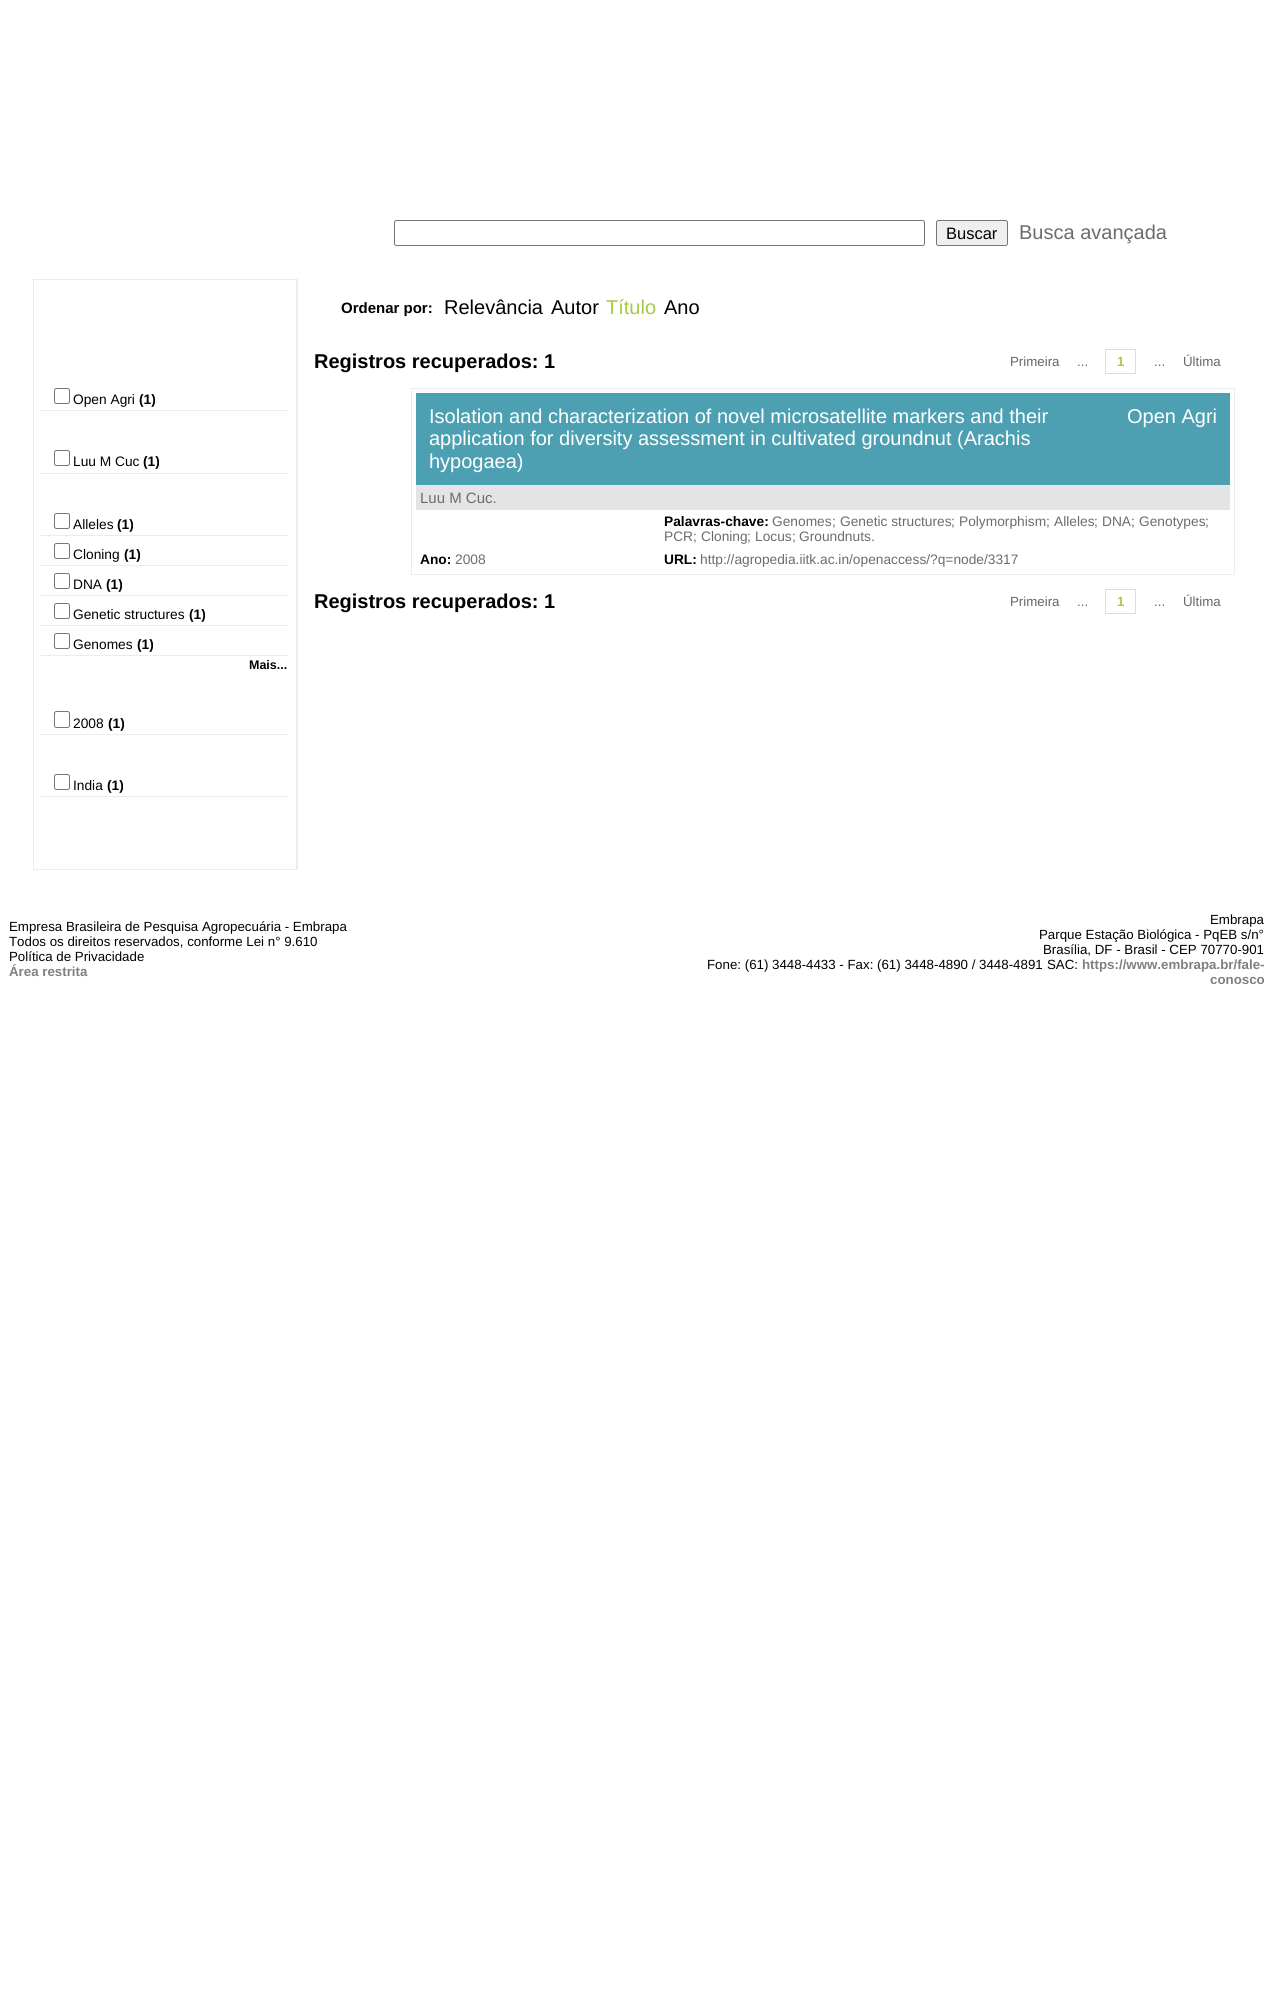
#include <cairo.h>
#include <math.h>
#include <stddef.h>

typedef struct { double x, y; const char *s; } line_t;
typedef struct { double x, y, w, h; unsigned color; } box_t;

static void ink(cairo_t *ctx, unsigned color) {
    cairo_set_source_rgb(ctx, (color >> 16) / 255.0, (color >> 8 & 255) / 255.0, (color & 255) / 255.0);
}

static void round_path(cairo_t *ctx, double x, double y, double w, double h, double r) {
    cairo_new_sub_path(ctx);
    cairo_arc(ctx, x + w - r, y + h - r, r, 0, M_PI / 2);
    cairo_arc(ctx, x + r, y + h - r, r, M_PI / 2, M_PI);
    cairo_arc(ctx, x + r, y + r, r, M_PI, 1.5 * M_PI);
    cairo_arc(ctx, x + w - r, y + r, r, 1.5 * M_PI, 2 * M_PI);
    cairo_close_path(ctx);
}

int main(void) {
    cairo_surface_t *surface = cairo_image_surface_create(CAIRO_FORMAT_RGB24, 1273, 2009);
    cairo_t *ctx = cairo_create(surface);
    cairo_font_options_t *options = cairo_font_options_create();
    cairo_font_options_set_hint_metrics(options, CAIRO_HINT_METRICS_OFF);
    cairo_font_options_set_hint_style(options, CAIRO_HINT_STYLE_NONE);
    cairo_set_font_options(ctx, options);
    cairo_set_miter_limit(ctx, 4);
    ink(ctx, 0xFFFFFF);
    cairo_paint(ctx);
    round_path(ctx, 394.5, 220.5, 530, 25, 2);
    ink(ctx, 0x767676);
    cairo_set_line_width(ctx, 1);
    cairo_stroke(ctx);
    ink(ctx, 0xEFEFEF);
    round_path(ctx, 936.5, 220.5, 71, 25, 2);
    cairo_fill_preserve(ctx);
    ink(ctx, 0x767676);
    cairo_stroke(ctx);
    cairo_select_font_face(ctx, "Liberation Sans", CAIRO_FONT_SLANT_NORMAL, CAIRO_FONT_WEIGHT_NORMAL);
    cairo_set_font_size(ctx, 16.5);
    ink(ctx, 0x000000);
    cairo_move_to(ctx, 946, 239);
    cairo_show_text(ctx, "Buscar");
    cairo_set_font_size(ctx, 20);
    ink(ctx, 0x6C6C6C);
    cairo_move_to(ctx, 1019, 239);
    cairo_show_text(ctx, "Busca avançada");
    {
        static const box_t items[] = {
            {33, 279, 265, 591, 0xECECEC},
            {34, 280, 262, 589, 0xFFFFFF},
            {41, 410, 248, 1, 0xECECEC},
        };
        for (size_t i = 0; i < sizeof items / sizeof *items; i++) {
            ink(ctx, items[i].color);
            cairo_rectangle(ctx, items[i].x, items[i].y, items[i].w, items[i].h);
            cairo_fill(ctx);
        }
    }
    round_path(ctx, 54.5, 388.5, 15, 15, 2);
    ink(ctx, 0x767676);
    cairo_stroke(ctx);
    cairo_set_font_size(ctx, 13.75);
    ink(ctx, 0x000000);
    cairo_move_to(ctx, 73, 404);
    cairo_show_text(ctx, "Open Agri");
    cairo_select_font_face(ctx, "Liberation Sans", CAIRO_FONT_SLANT_NORMAL, CAIRO_FONT_WEIGHT_BOLD);
    cairo_move_to(ctx, 139, 404);
    cairo_show_text(ctx, "(1)");
    ink(ctx, 0xECECEC);
    cairo_rectangle(ctx, 41, 473, 248, 1);
    cairo_fill(ctx);
    round_path(ctx, 54.5, 450.5, 15, 15, 2);
    ink(ctx, 0x767676);
    cairo_stroke(ctx);
    cairo_select_font_face(ctx, "Liberation Sans", CAIRO_FONT_SLANT_NORMAL, CAIRO_FONT_WEIGHT_NORMAL);
    ink(ctx, 0x000000);
    cairo_move_to(ctx, 73, 466);
    cairo_show_text(ctx, "Luu M Cuc");
    cairo_select_font_face(ctx, "Liberation Sans", CAIRO_FONT_SLANT_NORMAL, CAIRO_FONT_WEIGHT_BOLD);
    cairo_move_to(ctx, 143, 466);
    cairo_show_text(ctx, "(1)");
    ink(ctx, 0xECECEC);
    cairo_rectangle(ctx, 41, 535, 248, 1);
    cairo_fill(ctx);
    round_path(ctx, 54.5, 513.5, 15, 15, 2);
    ink(ctx, 0x767676);
    cairo_stroke(ctx);
    cairo_select_font_face(ctx, "Liberation Sans", CAIRO_FONT_SLANT_NORMAL, CAIRO_FONT_WEIGHT_NORMAL);
    ink(ctx, 0x000000);
    cairo_move_to(ctx, 73, 529);
    cairo_show_text(ctx, "Alleles");
    cairo_select_font_face(ctx, "Liberation Sans", CAIRO_FONT_SLANT_NORMAL, CAIRO_FONT_WEIGHT_BOLD);
    cairo_move_to(ctx, 117, 529);
    cairo_show_text(ctx, "(1)");
    ink(ctx, 0xECECEC);
    cairo_rectangle(ctx, 41, 565, 248, 1);
    cairo_fill(ctx);
    round_path(ctx, 54.5, 543.5, 15, 15, 2);
    ink(ctx, 0x767676);
    cairo_stroke(ctx);
    cairo_select_font_face(ctx, "Liberation Sans", CAIRO_FONT_SLANT_NORMAL, CAIRO_FONT_WEIGHT_NORMAL);
    ink(ctx, 0x000000);
    cairo_move_to(ctx, 73, 559);
    cairo_show_text(ctx, "Cloning");
    cairo_select_font_face(ctx, "Liberation Sans", CAIRO_FONT_SLANT_NORMAL, CAIRO_FONT_WEIGHT_BOLD);
    cairo_move_to(ctx, 124, 559);
    cairo_show_text(ctx, "(1)");
    ink(ctx, 0xECECEC);
    cairo_rectangle(ctx, 41, 595, 248, 1);
    cairo_fill(ctx);
    round_path(ctx, 54.5, 573.5, 15, 15, 2);
    ink(ctx, 0x767676);
    cairo_stroke(ctx);
    cairo_select_font_face(ctx, "Liberation Sans", CAIRO_FONT_SLANT_NORMAL, CAIRO_FONT_WEIGHT_NORMAL);
    ink(ctx, 0x000000);
    cairo_move_to(ctx, 73, 589);
    cairo_show_text(ctx, "DNA");
    cairo_select_font_face(ctx, "Liberation Sans", CAIRO_FONT_SLANT_NORMAL, CAIRO_FONT_WEIGHT_BOLD);
    cairo_move_to(ctx, 106, 589);
    cairo_show_text(ctx, "(1)");
    ink(ctx, 0xECECEC);
    cairo_rectangle(ctx, 41, 625, 248, 1);
    cairo_fill(ctx);
    round_path(ctx, 54.5, 603.5, 15, 15, 2);
    ink(ctx, 0x767676);
    cairo_stroke(ctx);
    cairo_select_font_face(ctx, "Liberation Sans", CAIRO_FONT_SLANT_NORMAL, CAIRO_FONT_WEIGHT_NORMAL);
    ink(ctx, 0x000000);
    cairo_move_to(ctx, 73, 619);
    cairo_show_text(ctx, "Genetic structures");
    cairo_select_font_face(ctx, "Liberation Sans", CAIRO_FONT_SLANT_NORMAL, CAIRO_FONT_WEIGHT_BOLD);
    cairo_move_to(ctx, 189, 619);
    cairo_show_text(ctx, "(1)");
    ink(ctx, 0xECECEC);
    cairo_rectangle(ctx, 41, 655, 248, 1);
    cairo_fill(ctx);
    round_path(ctx, 54.5, 633.5, 15, 15, 2);
    ink(ctx, 0x767676);
    cairo_stroke(ctx);
    cairo_select_font_face(ctx, "Liberation Sans", CAIRO_FONT_SLANT_NORMAL, CAIRO_FONT_WEIGHT_NORMAL);
    ink(ctx, 0x000000);
    cairo_move_to(ctx, 73, 649);
    cairo_show_text(ctx, "Genomes");
    cairo_select_font_face(ctx, "Liberation Sans", CAIRO_FONT_SLANT_NORMAL, CAIRO_FONT_WEIGHT_BOLD);
    cairo_move_to(ctx, 137, 649);
    cairo_show_text(ctx, "(1)");
    cairo_set_font_size(ctx, 12.5);
    cairo_move_to(ctx, 249, 669);
    cairo_show_text(ctx, "Mais...");
    ink(ctx, 0xECECEC);
    cairo_rectangle(ctx, 41, 734, 248, 1);
    cairo_fill(ctx);
    round_path(ctx, 54.5, 711.5, 15, 16, 2);
    ink(ctx, 0x767676);
    cairo_stroke(ctx);
    cairo_select_font_face(ctx, "Liberation Sans", CAIRO_FONT_SLANT_NORMAL, CAIRO_FONT_WEIGHT_NORMAL);
    cairo_set_font_size(ctx, 13.75);
    ink(ctx, 0x000000);
    cairo_move_to(ctx, 73, 728);
    cairo_show_text(ctx, "2008");
    cairo_select_font_face(ctx, "Liberation Sans", CAIRO_FONT_SLANT_NORMAL, CAIRO_FONT_WEIGHT_BOLD);
    cairo_move_to(ctx, 108, 728);
    cairo_show_text(ctx, "(1)");
    ink(ctx, 0xECECEC);
    cairo_rectangle(ctx, 41, 796, 248, 1);
    cairo_fill(ctx);
    round_path(ctx, 54.5, 774.5, 15, 15, 2);
    ink(ctx, 0x767676);
    cairo_stroke(ctx);
    cairo_select_font_face(ctx, "Liberation Sans", CAIRO_FONT_SLANT_NORMAL, CAIRO_FONT_WEIGHT_NORMAL);
    ink(ctx, 0x000000);
    cairo_move_to(ctx, 73, 790);
    cairo_show_text(ctx, "India");
    cairo_select_font_face(ctx, "Liberation Sans", CAIRO_FONT_SLANT_NORMAL, CAIRO_FONT_WEIGHT_BOLD);
    cairo_move_to(ctx, 107, 790);
    cairo_show_text(ctx, "(1)");
    cairo_set_font_size(ctx, 15);
    cairo_move_to(ctx, 341, 313);
    cairo_show_text(ctx, "Ordenar por:");
    cairo_select_font_face(ctx, "Liberation Sans", CAIRO_FONT_SLANT_NORMAL, CAIRO_FONT_WEIGHT_NORMAL);
    cairo_set_font_size(ctx, 20);
    cairo_move_to(ctx, 444, 314);
    cairo_show_text(ctx, "Relevância");
    cairo_move_to(ctx, 551, 314);
    cairo_show_text(ctx, "Autor");
    ink(ctx, 0xA6CA44);
    cairo_move_to(ctx, 606, 314);
    cairo_show_text(ctx, "Título");
    ink(ctx, 0x000000);
    cairo_move_to(ctx, 664, 314);
    cairo_show_text(ctx, "Ano");
    cairo_select_font_face(ctx, "Liberation Sans", CAIRO_FONT_SLANT_NORMAL, CAIRO_FONT_WEIGHT_BOLD);
    cairo_move_to(ctx, 314, 368);
    cairo_show_text(ctx, "Registros recuperados: 1");
    cairo_select_font_face(ctx, "Liberation Sans", CAIRO_FONT_SLANT_NORMAL, CAIRO_FONT_WEIGHT_NORMAL);
    cairo_set_font_size(ctx, 13.3);
    ink(ctx, 0x666666);
    cairo_move_to(ctx, 1010, 366);
    cairo_show_text(ctx, "Primeira");
    cairo_move_to(ctx, 1077, 366);
    cairo_show_text(ctx, "...");
    cairo_rectangle(ctx, 1105.5, 349.5, 30, 24);
    ink(ctx, 0xDDDDDD);
    cairo_stroke(ctx);
    cairo_select_font_face(ctx, "Liberation Sans", CAIRO_FONT_SLANT_NORMAL, CAIRO_FONT_WEIGHT_BOLD);
    ink(ctx, 0xA6CA44);
    cairo_move_to(ctx, 1117, 366);
    cairo_show_text(ctx, "1");
    cairo_select_font_face(ctx, "Liberation Sans", CAIRO_FONT_SLANT_NORMAL, CAIRO_FONT_WEIGHT_NORMAL);
    ink(ctx, 0x666666);
    cairo_move_to(ctx, 1154, 366);
    cairo_show_text(ctx, "...");
    cairo_move_to(ctx, 1183, 366);
    cairo_show_text(ctx, "Última");
    cairo_rectangle(ctx, 411.5, 388.5, 823, 186);
    ink(ctx, 0xECECEC);
    cairo_stroke(ctx);
    ink(ctx, 0x4DA0B2);
    cairo_rectangle(ctx, 416, 393, 814, 92);
    cairo_fill(ctx);
    cairo_set_font_size(ctx, 20);
    ink(ctx, 0xFFFFFF);
    {
        static const line_t items[] = {
            {429, 423, "Isolation and characterization of novel microsatellite markers and their"},
            {429, 445, "application for diversity assessment in cultivated groundnut (Arachis"},
            {429, 468, "hypogaea)"},
            {1127, 423, "Open Agri"},
        };
        for (size_t i = 0; i < sizeof items / sizeof *items; i++) {
            cairo_move_to(ctx, items[i].x, items[i].y);
            cairo_show_text(ctx, items[i].s);
        }
    }
    ink(ctx, 0xE4E4E4);
    cairo_rectangle(ctx, 416, 485, 814, 25);
    cairo_fill(ctx);
    cairo_set_font_size(ctx, 15);
    ink(ctx, 0x6C6C6C);
    cairo_move_to(ctx, 420, 503);
    cairo_show_text(ctx, "Luu M Cuc.");
    cairo_select_font_face(ctx, "Liberation Sans", CAIRO_FONT_SLANT_NORMAL, CAIRO_FONT_WEIGHT_BOLD);
    cairo_set_font_size(ctx, 13.75);
    ink(ctx, 0x000000);
    cairo_move_to(ctx, 664, 526);
    cairo_show_text(ctx, "Palavras-chave:");
    cairo_select_font_face(ctx, "Liberation Sans", CAIRO_FONT_SLANT_NORMAL, CAIRO_FONT_WEIGHT_NORMAL);
    ink(ctx, 0x6C6C6C);
    cairo_move_to(ctx, 772, 526);
    cairo_show_text(ctx, "Genomes");
    ink(ctx, 0x666666);
    cairo_move_to(ctx, 832, 526);
    cairo_show_text(ctx, ";");
    ink(ctx, 0x6C6C6C);
    cairo_move_to(ctx, 840, 526);
    cairo_show_text(ctx, "Genetic structures");
    ink(ctx, 0x666666);
    cairo_move_to(ctx, 951, 526);
    cairo_show_text(ctx, ";");
    ink(ctx, 0x6C6C6C);
    cairo_move_to(ctx, 959, 526);
    cairo_show_text(ctx, "Polymorphism");
    ink(ctx, 0x666666);
    cairo_move_to(ctx, 1046, 526);
    cairo_show_text(ctx, ";");
    ink(ctx, 0x6C6C6C);
    cairo_move_to(ctx, 1054, 526);
    cairo_show_text(ctx, "Alleles");
    ink(ctx, 0x666666);
    cairo_move_to(ctx, 1094, 526);
    cairo_show_text(ctx, ";");
    ink(ctx, 0x6C6C6C);
    cairo_move_to(ctx, 1102, 526);
    cairo_show_text(ctx, "DNA");
    ink(ctx, 0x666666);
    cairo_move_to(ctx, 1131, 526);
    cairo_show_text(ctx, ";");
    ink(ctx, 0x6C6C6C);
    cairo_move_to(ctx, 1139, 526);
    cairo_show_text(ctx, "Genotypes");
    ink(ctx, 0x666666);
    cairo_move_to(ctx, 1205, 526);
    cairo_show_text(ctx, ";");
    ink(ctx, 0x6C6C6C);
    cairo_move_to(ctx, 664, 541);
    cairo_show_text(ctx, "PCR");
    ink(ctx, 0x666666);
    cairo_move_to(ctx, 693, 541);
    cairo_show_text(ctx, ";");
    ink(ctx, 0x6C6C6C);
    cairo_move_to(ctx, 701, 541);
    cairo_show_text(ctx, "Cloning");
    ink(ctx, 0x666666);
    cairo_move_to(ctx, 747, 541);
    cairo_show_text(ctx, ";");
    ink(ctx, 0x6C6C6C);
    cairo_move_to(ctx, 755, 541);
    cairo_show_text(ctx, "Locus");
    ink(ctx, 0x666666);
    cairo_move_to(ctx, 792, 541);
    cairo_show_text(ctx, ";");
    ink(ctx, 0x6C6C6C);
    cairo_move_to(ctx, 799, 541);
    cairo_show_text(ctx, "Groundnuts");
    ink(ctx, 0x666666);
    cairo_move_to(ctx, 871, 541);
    cairo_show_text(ctx, ".");
    cairo_select_font_face(ctx, "Liberation Sans", CAIRO_FONT_SLANT_NORMAL, CAIRO_FONT_WEIGHT_BOLD);
    ink(ctx, 0x000000);
    cairo_move_to(ctx, 420, 564);
    cairo_show_text(ctx, "Ano:");
    cairo_select_font_face(ctx, "Liberation Sans", CAIRO_FONT_SLANT_NORMAL, CAIRO_FONT_WEIGHT_NORMAL);
    ink(ctx, 0x6C6C6C);
    cairo_move_to(ctx, 455, 564);
    cairo_show_text(ctx, "2008");
    cairo_select_font_face(ctx, "Liberation Sans", CAIRO_FONT_SLANT_NORMAL, CAIRO_FONT_WEIGHT_BOLD);
    ink(ctx, 0x000000);
    cairo_move_to(ctx, 664, 564);
    cairo_show_text(ctx, "URL:");
    cairo_select_font_face(ctx, "Liberation Sans", CAIRO_FONT_SLANT_NORMAL, CAIRO_FONT_WEIGHT_NORMAL);
    ink(ctx, 0x6C6C6C);
    cairo_move_to(ctx, 700, 564);
    cairo_show_text(ctx, "http://agropedia.iitk.ac.in/openaccess/?q=node/3317");
    cairo_select_font_face(ctx, "Liberation Sans", CAIRO_FONT_SLANT_NORMAL, CAIRO_FONT_WEIGHT_BOLD);
    cairo_set_font_size(ctx, 20);
    ink(ctx, 0x000000);
    cairo_move_to(ctx, 314, 608);
    cairo_show_text(ctx, "Registros recuperados: 1");
    cairo_select_font_face(ctx, "Liberation Sans", CAIRO_FONT_SLANT_NORMAL, CAIRO_FONT_WEIGHT_NORMAL);
    cairo_set_font_size(ctx, 13.3);
    ink(ctx, 0x666666);
    cairo_move_to(ctx, 1010, 606);
    cairo_show_text(ctx, "Primeira");
    cairo_move_to(ctx, 1077, 606);
    cairo_show_text(ctx, "...");
    cairo_rectangle(ctx, 1105.5, 589.5, 30, 24);
    ink(ctx, 0xDDDDDD);
    cairo_stroke(ctx);
    cairo_select_font_face(ctx, "Liberation Sans", CAIRO_FONT_SLANT_NORMAL, CAIRO_FONT_WEIGHT_BOLD);
    ink(ctx, 0xA6CA44);
    cairo_move_to(ctx, 1117, 606);
    cairo_show_text(ctx, "1");
    cairo_select_font_face(ctx, "Liberation Sans", CAIRO_FONT_SLANT_NORMAL, CAIRO_FONT_WEIGHT_NORMAL);
    ink(ctx, 0x666666);
    cairo_move_to(ctx, 1154, 606);
    cairo_show_text(ctx, "...");
    cairo_move_to(ctx, 1183, 606);
    cairo_show_text(ctx, "Última");
    ink(ctx, 0x000000);
    {
        static const line_t items[] = {
            {9, 931, "Empresa Brasileira de Pesquisa Agropecuária - Embrapa"},
            {9, 946, "Todos os direitos reservados, conforme Lei n° 9.610"},
            {9, 961, "Política de Privacidade"},
        };
        for (size_t i = 0; i < sizeof items / sizeof *items; i++) {
            cairo_move_to(ctx, items[i].x, items[i].y);
            cairo_show_text(ctx, items[i].s);
        }
    }
    cairo_select_font_face(ctx, "Liberation Sans", CAIRO_FONT_SLANT_NORMAL, CAIRO_FONT_WEIGHT_BOLD);
    ink(ctx, 0x808080);
    cairo_move_to(ctx, 9, 976);
    cairo_show_text(ctx, "Área restrita");
    cairo_select_font_face(ctx, "Liberation Sans", CAIRO_FONT_SLANT_NORMAL, CAIRO_FONT_WEIGHT_NORMAL);
    ink(ctx, 0x000000);
    {
        static const line_t items[] = {
            {1210, 924, "Embrapa"},
            {1039, 939, "Parque Estação Biológica - PqEB s/n°"},
            {1043, 954, "Brasília, DF - Brasil - CEP 70770-901"},
            {707, 969, "Fone: (61) 3448-4433 - Fax: (61) 3448-4890 / 3448-4891"},
            {1047, 969, "SAC:"},
        };
        for (size_t i = 0; i < sizeof items / sizeof *items; i++) {
            cairo_move_to(ctx, items[i].x, items[i].y);
            cairo_show_text(ctx, items[i].s);
        }
    }
    cairo_select_font_face(ctx, "Liberation Sans", CAIRO_FONT_SLANT_NORMAL, CAIRO_FONT_WEIGHT_BOLD);
    ink(ctx, 0x808080);
    cairo_move_to(ctx, 1082, 969);
    cairo_show_text(ctx, "https://www.embrapa.br/fale-");
    cairo_move_to(ctx, 1210, 984);
    cairo_show_text(ctx, "conosco");
    cairo_surface_write_to_png(surface, "image.png");
    cairo_font_options_destroy(options);
    cairo_destroy(ctx);
    cairo_surface_destroy(surface);
    return 0;
}
